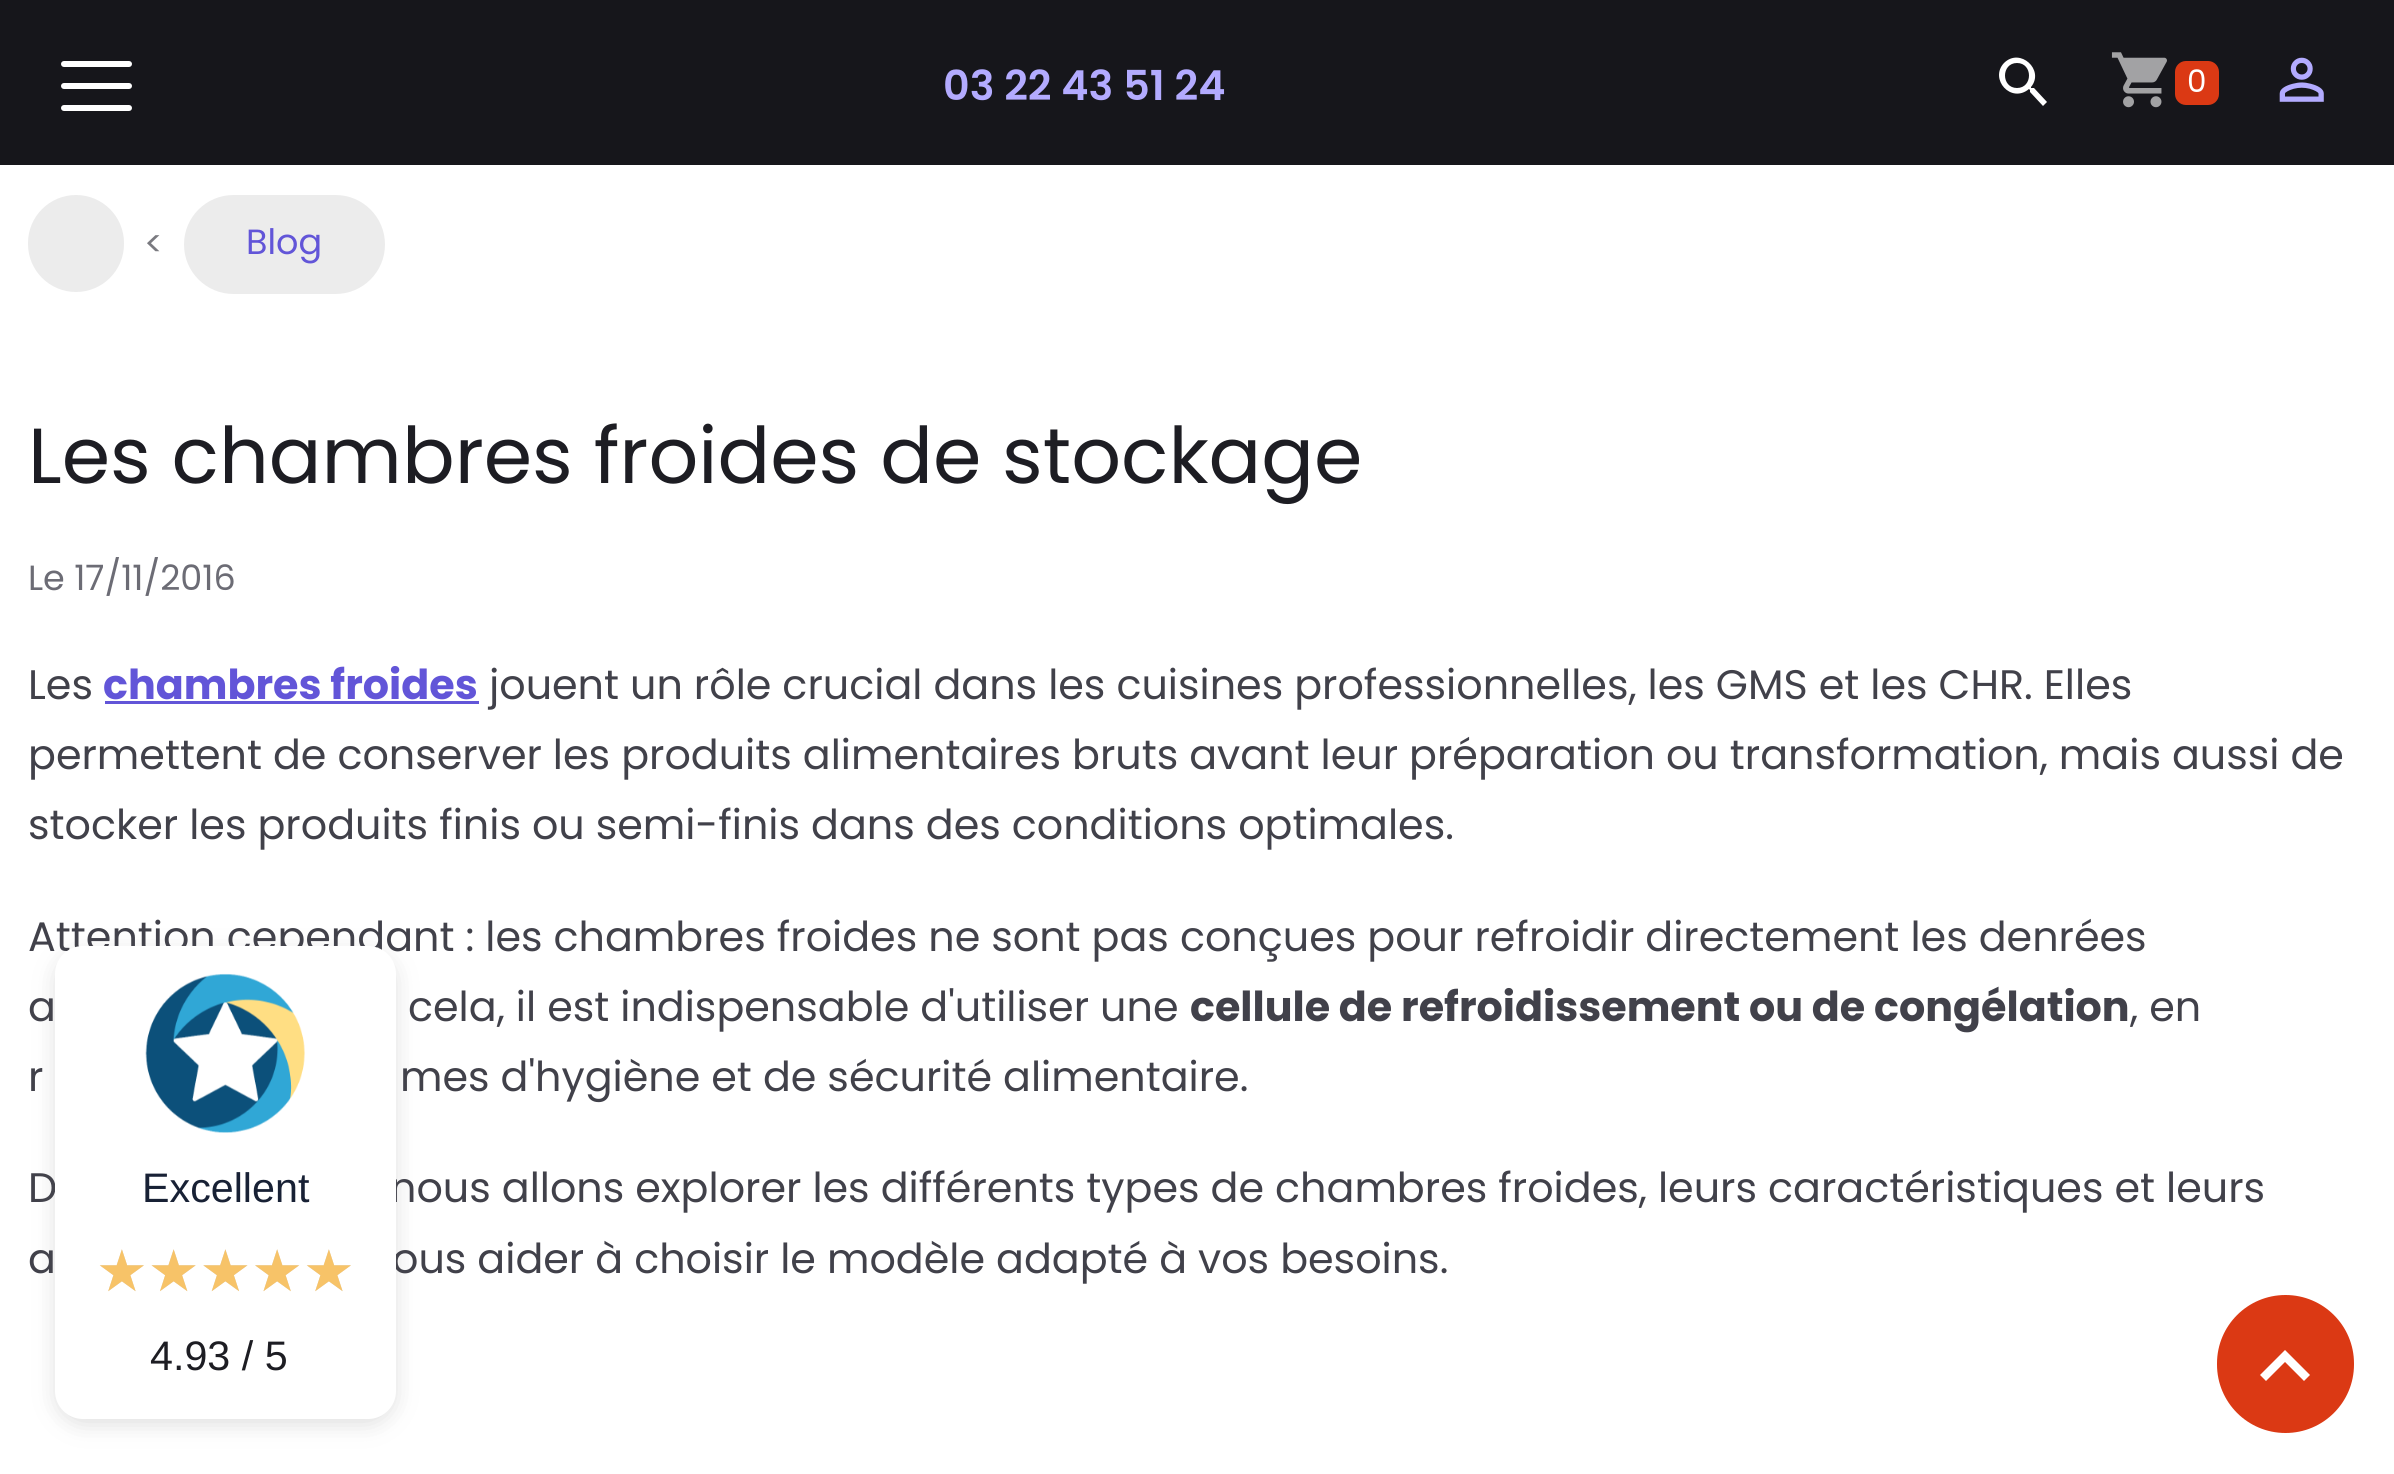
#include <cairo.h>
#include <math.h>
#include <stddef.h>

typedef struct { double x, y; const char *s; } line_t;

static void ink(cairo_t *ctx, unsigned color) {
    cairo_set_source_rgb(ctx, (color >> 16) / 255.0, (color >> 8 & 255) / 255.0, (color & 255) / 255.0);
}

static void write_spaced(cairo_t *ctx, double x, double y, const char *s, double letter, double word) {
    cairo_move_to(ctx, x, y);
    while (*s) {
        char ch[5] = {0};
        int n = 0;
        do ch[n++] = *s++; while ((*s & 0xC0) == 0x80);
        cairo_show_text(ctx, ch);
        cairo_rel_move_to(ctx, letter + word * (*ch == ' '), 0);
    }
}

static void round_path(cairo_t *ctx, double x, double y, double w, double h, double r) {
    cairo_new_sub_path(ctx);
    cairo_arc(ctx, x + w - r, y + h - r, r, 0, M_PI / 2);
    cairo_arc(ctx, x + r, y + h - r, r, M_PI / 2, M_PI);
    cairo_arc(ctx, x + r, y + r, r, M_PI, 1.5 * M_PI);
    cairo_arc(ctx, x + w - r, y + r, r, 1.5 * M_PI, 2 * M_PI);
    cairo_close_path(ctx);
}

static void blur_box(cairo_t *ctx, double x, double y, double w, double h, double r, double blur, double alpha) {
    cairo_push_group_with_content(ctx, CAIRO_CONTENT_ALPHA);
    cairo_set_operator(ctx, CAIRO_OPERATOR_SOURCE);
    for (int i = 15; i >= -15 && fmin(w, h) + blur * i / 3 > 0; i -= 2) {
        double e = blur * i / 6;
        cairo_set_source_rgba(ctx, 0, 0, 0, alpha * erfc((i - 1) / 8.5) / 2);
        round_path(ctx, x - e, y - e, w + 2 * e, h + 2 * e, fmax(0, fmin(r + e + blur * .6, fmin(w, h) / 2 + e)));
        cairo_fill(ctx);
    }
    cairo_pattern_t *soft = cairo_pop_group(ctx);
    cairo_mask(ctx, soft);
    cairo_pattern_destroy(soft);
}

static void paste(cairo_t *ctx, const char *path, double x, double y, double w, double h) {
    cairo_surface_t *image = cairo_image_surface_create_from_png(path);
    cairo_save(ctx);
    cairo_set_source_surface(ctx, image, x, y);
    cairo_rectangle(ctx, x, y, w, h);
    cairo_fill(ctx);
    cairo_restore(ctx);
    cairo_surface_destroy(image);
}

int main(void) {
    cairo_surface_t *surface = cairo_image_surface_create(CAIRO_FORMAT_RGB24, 2394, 1474);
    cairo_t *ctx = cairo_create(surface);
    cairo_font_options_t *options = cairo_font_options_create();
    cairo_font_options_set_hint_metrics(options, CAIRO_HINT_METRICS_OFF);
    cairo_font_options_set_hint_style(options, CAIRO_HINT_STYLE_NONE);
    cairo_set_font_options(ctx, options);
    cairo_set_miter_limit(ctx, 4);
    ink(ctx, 0xFFFFFF);
    cairo_paint(ctx);
    ink(ctx, 0x16161B);
    cairo_rectangle(ctx, 0, 0, 2394, 165);
    cairo_fill(ctx);
    ink(ctx, 0xFFFFFF);
    round_path(ctx, 61, 61, 71, 6, 3);
    cairo_fill(ctx);
    round_path(ctx, 61, 83, 71, 6, 3);
    cairo_fill(ctx);
    round_path(ctx, 61, 105, 71, 6, 3);
    cairo_fill(ctx);
    cairo_select_font_face(ctx, "Poppins SemiBold", CAIRO_FONT_SLANT_NORMAL, CAIRO_FONT_WEIGHT_NORMAL);
    cairo_set_font_size(ctx, 41.25);
    ink(ctx, 0xB3ABFF);
    cairo_move_to(ctx, 943, 100);
    cairo_show_text(ctx, "03 22 43 51 24");
    ink(ctx, 0xFFFFFF);
    cairo_new_path(ctx);
    cairo_move_to(ctx, 2034, 88);
    cairo_line_to(ctx, 2047, 102);
    cairo_line_to(ctx, 2043, 106);
    cairo_line_to(ctx, 2030, 92);
    cairo_line_to(ctx, 2030, 90);
    cairo_line_to(ctx, 2029, 89);
    cairo_curve_to(ctx, 2011, 104, 1989, 79, 2004, 63);
    cairo_curve_to(ctx, 2020, 47, 2045, 70, 2031, 87);
    cairo_line_to(ctx, 2031, 88);
    cairo_close_path(ctx);
    cairo_move_to(ctx, 2017, 88);
    cairo_curve_to(ctx, 2033, 88, 2033, 63, 2017, 63);
    cairo_curve_to(ctx, 2001, 63, 2001, 88, 2017, 88);
    cairo_close_path(ctx);
    cairo_fill(ctx);
    paste(ctx, "media/1.png", 2111, 52, 56, 56);
    ink(ctx, 0xDB3914);
    round_path(ctx, 2175, 61, 44, 44, 11);
    cairo_fill(ctx);
    cairo_select_font_face(ctx, "Poppins", CAIRO_FONT_SLANT_NORMAL, CAIRO_FONT_WEIGHT_NORMAL);
    cairo_set_font_size(ctx, 31);
    ink(ctx, 0xFFFFFF);
    write_spaced(ctx, 2187, 92, "0", 1, 0);
    paste(ctx, "media/2.png", 2279, 57, 45, 45);
    ink(ctx, 0xECECEC);
    round_path(ctx, 28, 195, 96, 97, 48);
    cairo_fill(ctx);
    cairo_set_font_size(ctx, 35);
    ink(ctx, 0x7A7A80);
    cairo_move_to(ctx, 144, 256);
    cairo_show_text(ctx, "<");
    ink(ctx, 0xECECEC);
    round_path(ctx, 184, 195, 201, 99, 49.5);
    cairo_fill(ctx);
    ink(ctx, 0x6255D8);
    cairo_move_to(ctx, 246, 254);
    cairo_show_text(ctx, "Blog");
    cairo_set_font_size(ctx, 78);
    ink(ctx, 0x1D1D23);
    cairo_move_to(ctx, 28, 483);
    cairo_show_text(ctx, "Les chambres froides de stockage");
    cairo_set_font_size(ctx, 35);
    ink(ctx, 0x6C6C75);
    cairo_move_to(ctx, 28, 590);
    cairo_show_text(ctx, "Le 17/11/2016");
    cairo_set_font_size(ctx, 41.25);
    ink(ctx, 0x41414A);
    cairo_move_to(ctx, 28, 699);
    cairo_show_text(ctx, "Les");
    cairo_select_font_face(ctx, "Poppins", CAIRO_FONT_SLANT_NORMAL, CAIRO_FONT_WEIGHT_BOLD);
    ink(ctx, 0x6255D8);
    cairo_move_to(ctx, 103, 699);
    cairo_show_text(ctx, "chambres froides");
    cairo_rectangle(ctx, 105, 701, 374, 3);
    cairo_fill(ctx);
    cairo_select_font_face(ctx, "Poppins", CAIRO_FONT_SLANT_NORMAL, CAIRO_FONT_WEIGHT_NORMAL);
    ink(ctx, 0x41414A);
    {
        static const line_t items[] = {
            {489, 699, "jouent un rôle crucial dans les cuisines professionnelles, les GMS et les CHR. Elles"},
            {28, 769, "permettent de conserver les produits alimentaires bruts avant leur préparation ou transformation, mais aussi de"},
            {28, 839, "stocker les produits finis ou semi-finis dans des conditions optimales."},
            {28, 951, "Attention cependant : les chambres froides ne sont pas conçues pour refroidir directement les denrées"},
            {28, 1021, "a"},
            {408, 1021, "cela, il est indispensable d'utiliser une"},
        };
        for (size_t i = 0; i < sizeof items / sizeof *items; i++) {
            cairo_move_to(ctx, items[i].x, items[i].y);
            cairo_show_text(ctx, items[i].s);
        }
    }
    cairo_select_font_face(ctx, "Poppins", CAIRO_FONT_SLANT_NORMAL, CAIRO_FONT_WEIGHT_BOLD);
    cairo_move_to(ctx, 1190, 1021);
    cairo_show_text(ctx, "cellule de refroidissement ou de congélation");
    cairo_select_font_face(ctx, "Poppins", CAIRO_FONT_SLANT_NORMAL, CAIRO_FONT_WEIGHT_NORMAL);
    {
        static const line_t items[] = {
            {2130, 1021, ", en"},
            {28, 1091, "r"},
            {400, 1091, "mes d'hygiène et de sécurité alimentaire."},
            {28, 1202, "D"},
            {390, 1202, "nous allons explorer les différents types de chambres froides, leurs caractéristiques et leurs"},
            {28, 1273, "a"},
            {392, 1273, "ous aider à choisir le modèle adapté à vos besoins."},
        };
        for (size_t i = 0; i < sizeof items / sizeof *items; i++) {
            cairo_move_to(ctx, items[i].x, items[i].y);
            cairo_show_text(ctx, items[i].s);
        }
    }
    ink(ctx, 0x636363);
    blur_box(ctx, 55, 952, 341, 473, 28, 11, 0.2);
    ink(ctx, 0xFFFFFF);
    round_path(ctx, 55, 946, 341, 473, 28);
    cairo_fill(ctx);
    paste(ctx, "media/3.png", 145, 973, 160, 160);
    cairo_select_font_face(ctx, "Liberation Sans", CAIRO_FONT_SLANT_NORMAL, CAIRO_FONT_WEIGHT_NORMAL);
    ink(ctx, 0x182135);
    cairo_move_to(ctx, 142, 1202);
    cairo_show_text(ctx, "Excellent");
    cairo_select_font_face(ctx, "DejaVu Sans", CAIRO_FONT_SLANT_NORMAL, CAIRO_FONT_WEIGHT_NORMAL);
    cairo_set_font_size(ctx, 57.75);
    ink(ctx, 0xDEDEDE);
    cairo_move_to(ctx, 96, 1291);
    cairo_show_text(ctx, "★★★★★");
    ink(ctx, 0xF7C368);
    cairo_move_to(ctx, 96, 1291);
    cairo_show_text(ctx, "★★★★★");
    cairo_select_font_face(ctx, "Liberation Sans", CAIRO_FONT_SLANT_NORMAL, CAIRO_FONT_WEIGHT_NORMAL);
    cairo_set_font_size(ctx, 41.25);
    ink(ctx, 0x1D1D23);
    cairo_move_to(ctx, 150, 1370);
    cairo_show_text(ctx, "4.93 / 5");
    ink(ctx, 0xDB3914);
    round_path(ctx, 2217, 1295, 137, 138, 68.5);
    cairo_fill(ctx);
    ink(ctx, 0xFFFFFF);
    cairo_new_path(ctx);
    cairo_move_to(ctx, 2285, 1350);
    cairo_line_to(ctx, 2310, 1375);
    cairo_line_to(ctx, 2304, 1381);
    cairo_line_to(ctx, 2285, 1362);
    cairo_line_to(ctx, 2266, 1381);
    cairo_line_to(ctx, 2260, 1375);
    cairo_close_path(ctx);
    cairo_fill(ctx);
    cairo_surface_write_to_png(surface, "image.png");
    cairo_font_options_destroy(options);
    cairo_destroy(ctx);
    cairo_surface_destroy(surface);
    return 0;
}
